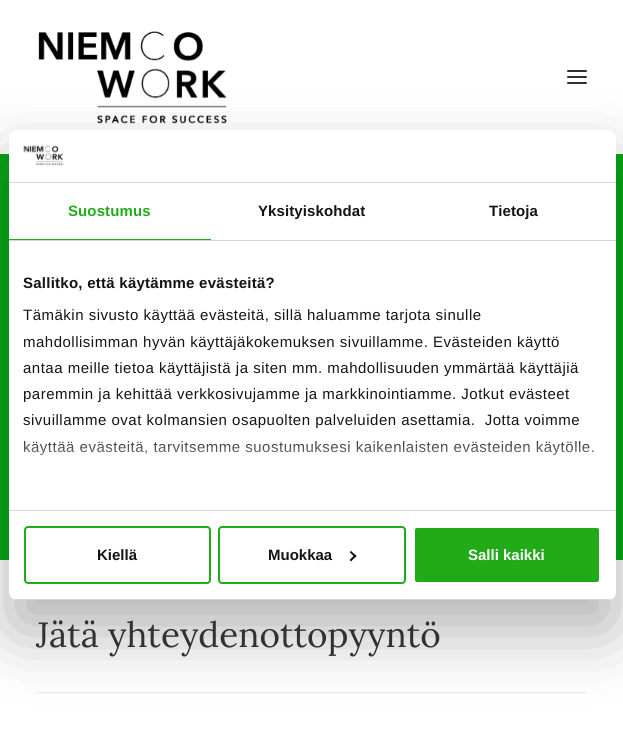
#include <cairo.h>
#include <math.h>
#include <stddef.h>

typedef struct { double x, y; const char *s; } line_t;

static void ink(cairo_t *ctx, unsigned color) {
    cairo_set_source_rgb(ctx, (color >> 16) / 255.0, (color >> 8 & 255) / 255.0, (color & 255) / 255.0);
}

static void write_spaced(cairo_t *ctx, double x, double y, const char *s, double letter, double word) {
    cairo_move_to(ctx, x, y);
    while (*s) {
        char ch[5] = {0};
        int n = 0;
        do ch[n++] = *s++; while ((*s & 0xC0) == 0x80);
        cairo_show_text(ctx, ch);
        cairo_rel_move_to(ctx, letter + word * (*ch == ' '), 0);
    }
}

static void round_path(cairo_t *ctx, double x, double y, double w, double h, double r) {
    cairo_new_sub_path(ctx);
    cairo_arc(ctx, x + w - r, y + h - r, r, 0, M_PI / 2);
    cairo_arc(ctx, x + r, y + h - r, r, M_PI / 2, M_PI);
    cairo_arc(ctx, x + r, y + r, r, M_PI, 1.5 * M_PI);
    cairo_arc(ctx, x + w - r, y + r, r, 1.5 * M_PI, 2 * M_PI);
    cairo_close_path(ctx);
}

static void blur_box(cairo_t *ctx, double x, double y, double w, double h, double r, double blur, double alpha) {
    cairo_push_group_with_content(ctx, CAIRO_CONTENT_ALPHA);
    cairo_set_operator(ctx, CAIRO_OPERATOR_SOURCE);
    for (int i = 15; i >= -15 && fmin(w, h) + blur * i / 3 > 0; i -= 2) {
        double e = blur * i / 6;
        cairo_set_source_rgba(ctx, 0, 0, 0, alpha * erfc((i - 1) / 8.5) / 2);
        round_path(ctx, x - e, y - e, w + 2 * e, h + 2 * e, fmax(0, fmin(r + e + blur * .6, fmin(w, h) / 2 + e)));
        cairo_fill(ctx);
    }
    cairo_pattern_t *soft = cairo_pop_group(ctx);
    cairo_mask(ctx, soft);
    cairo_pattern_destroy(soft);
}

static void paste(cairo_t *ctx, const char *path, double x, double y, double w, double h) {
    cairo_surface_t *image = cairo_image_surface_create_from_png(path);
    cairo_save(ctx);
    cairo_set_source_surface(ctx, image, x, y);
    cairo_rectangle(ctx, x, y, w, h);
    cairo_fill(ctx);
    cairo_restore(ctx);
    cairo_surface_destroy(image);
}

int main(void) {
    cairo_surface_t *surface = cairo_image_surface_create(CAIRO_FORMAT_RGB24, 623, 729);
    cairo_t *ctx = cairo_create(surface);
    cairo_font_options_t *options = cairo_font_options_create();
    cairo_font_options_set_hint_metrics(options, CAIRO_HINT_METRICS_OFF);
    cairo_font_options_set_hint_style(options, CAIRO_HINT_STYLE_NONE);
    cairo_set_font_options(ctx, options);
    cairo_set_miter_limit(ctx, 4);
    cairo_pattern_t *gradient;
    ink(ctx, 0x08AB18);
    cairo_paint(ctx);
    ink(ctx, 0x000000);
    blur_box(ctx, 0, 0, 623, 154, 0, 15, 0.07);
    ink(ctx, 0xFFFFFF);
    cairo_rectangle(ctx, 0, 0, 623, 154);
    cairo_fill(ctx);
    paste(ctx, "media/2.png", 38, 31, 189, 93);
    ink(ctx, 0x303133);
    round_path(ctx, 567, 76, 20, 2, 1);
    cairo_fill(ctx);
    round_path(ctx, 567, 70, 20, 2, 1);
    cairo_fill(ctx);
    round_path(ctx, 567, 82, 20, 2, 1);
    cairo_fill(ctx);
    ink(ctx, 0xFFFFFF);
    cairo_rectangle(ctx, 0, 560, 623, 169);
    cairo_fill(ctx);
    ink(ctx, 0xEAEAEA);
    cairo_rectangle(ctx, 36, 692, 551, 1);
    cairo_fill(ctx);
    ink(ctx, 0x000000);
    blur_box(ctx, 9, 162, 607, 470, 8, 34, 0.3);
    ink(ctx, 0xFFFFFF);
    round_path(ctx, 9, 130, 607, 470, 8);
    cairo_fill(ctx);
    ink(ctx, 0xD6D6D6);
    cairo_rectangle(ctx, 9, 182, 607, 1);
    cairo_fill(ctx);
    paste(ctx, "media/1.png", 23, 145, 41, 21);
    cairo_rectangle(ctx, 9, 240, 607, 1);
    cairo_fill(ctx);
    ink(ctx, 0x21AB19);
    cairo_rectangle(ctx, 9, 239, 202, 1);
    cairo_fill(ctx);
    cairo_select_font_face(ctx, "Liberation Sans", CAIRO_FONT_SLANT_NORMAL, CAIRO_FONT_WEIGHT_BOLD);
    cairo_set_font_size(ctx, 15);
    write_spaced(ctx, 68, 216, "Suostumus", 0.1, 0);
    ink(ctx, 0x141414);
    write_spaced(ctx, 258, 216, "Yksityiskohdat", 0.1, 0);
    write_spaced(ctx, 489, 216, "Tietoja", 0.1, 0);
    ink(ctx, 0xD6D6D6);
    cairo_rectangle(ctx, 9, 510, 607, 1);
    cairo_fill(ctx);
    ink(ctx, 0x141414);
    write_spaced(ctx, 23, 288, "Sallitko, että käytämme evästeitä?", 0.25, 0);
    cairo_select_font_face(ctx, "Liberation Sans", CAIRO_FONT_SLANT_NORMAL, CAIRO_FONT_WEIGHT_NORMAL);
    {
        static const line_t items[] = {
            {23, 320, "Tämäkin sivusto käyttää evästeitä, sillä haluamme tarjota sinulle"},
            {23, 347, "mahdollisimman hyvän käyttäjäkokemuksen sivuillamme. Evästeiden käyttö"},
            {23, 373, "antaa meille tietoa käyttäjistä ja siten mm. mahdollisuuden ymmärtää käyttäjiä"},
            {23, 399, "paremmin ja kehittää verkkosivujamme ja markkinointiamme. Jotkut evästeet"},
            {23, 425, "sivuillamme ovat kolmansien osapuolten palveluiden asettamia.  Jotta voimme"},
            {23, 452, "käyttää evästeitä, tarvitsemme suostumuksesi kaikenlaisten evästeiden käytölle."},
        };
        for (size_t i = 0; i < sizeof items / sizeof *items; i++) {
            write_spaced(ctx, items[i].x, items[i].y, items[i].s, 0.5, 0);
        }
    }
    gradient = cairo_pattern_create_linear(306, 510, 306, 435);
    cairo_pattern_add_color_stop_rgba(gradient, 0, 1, 1, 1, 1);
    cairo_pattern_add_color_stop_rgba(gradient, 0.5, 1, 1, 1, 0.8);
    cairo_pattern_add_color_stop_rgba(gradient, 1, 1, 1, 1, 0);
    cairo_set_source(ctx, gradient);
    cairo_pattern_destroy(gradient);
    cairo_rectangle(ctx, 24, 441, 570, 15);
    cairo_fill(ctx);
    cairo_save(ctx);
    round_path(ctx, 9, 130, 607, 470, 8);
    cairo_clip(ctx);
    ink(ctx, 0xD6D6D6);
    cairo_rectangle(ctx, 9, 599, 607, 1);
    cairo_fill(ctx);
    cairo_restore(ctx);
    round_path(ctx, 25, 527, 185, 56, 3);
    ink(ctx, 0x21AB19);
    cairo_stroke(ctx);
    cairo_select_font_face(ctx, "Liberation Sans", CAIRO_FONT_SLANT_NORMAL, CAIRO_FONT_WEIGHT_BOLD);
    ink(ctx, 0x141414);
    cairo_move_to(ctx, 97, 560);
    cairo_show_text(ctx, "Kiellä");
    round_path(ctx, 219, 527, 186, 56, 3);
    ink(ctx, 0x21AB19);
    cairo_stroke(ctx);
    ink(ctx, 0x141414);
    cairo_move_to(ctx, 268, 560);
    cairo_show_text(ctx, "Muokkaa");
    cairo_new_path(ctx);
    cairo_move_to(ctx, 351, 551);
    cairo_line_to(ctx, 356.5, 556);
    cairo_line_to(ctx, 355, 557.5);
    cairo_line_to(ctx, 349.5, 552);
    cairo_close_path(ctx);
    cairo_fill(ctx);
    cairo_new_path(ctx);
    cairo_move_to(ctx, 355, 554.5);
    cairo_line_to(ctx, 356.5, 556);
    cairo_line_to(ctx, 351, 561.5);
    cairo_line_to(ctx, 349.5, 560);
    cairo_close_path(ctx);
    cairo_fill(ctx);
    ink(ctx, 0x21AB19);
    round_path(ctx, 414, 527, 186, 56, 3);
    cairo_fill_preserve(ctx);
    ink(ctx, 0xFFFFFF);
    cairo_stroke(ctx);
    cairo_move_to(ctx, 468, 560);
    cairo_show_text(ctx, "Salli kaikki");
    cairo_select_font_face(ctx, "Lora", CAIRO_FONT_SLANT_NORMAL, CAIRO_FONT_WEIGHT_NORMAL);
    cairo_set_font_size(ctx, 35);
    ink(ctx, 0x303133);
    cairo_move_to(ctx, 36, 647);
    cairo_show_text(ctx, "Jätä yhteydenottopyyntö");
    cairo_surface_write_to_png(surface, "image.png");
    cairo_font_options_destroy(options);
    cairo_destroy(ctx);
    cairo_surface_destroy(surface);
    return 0;
}
